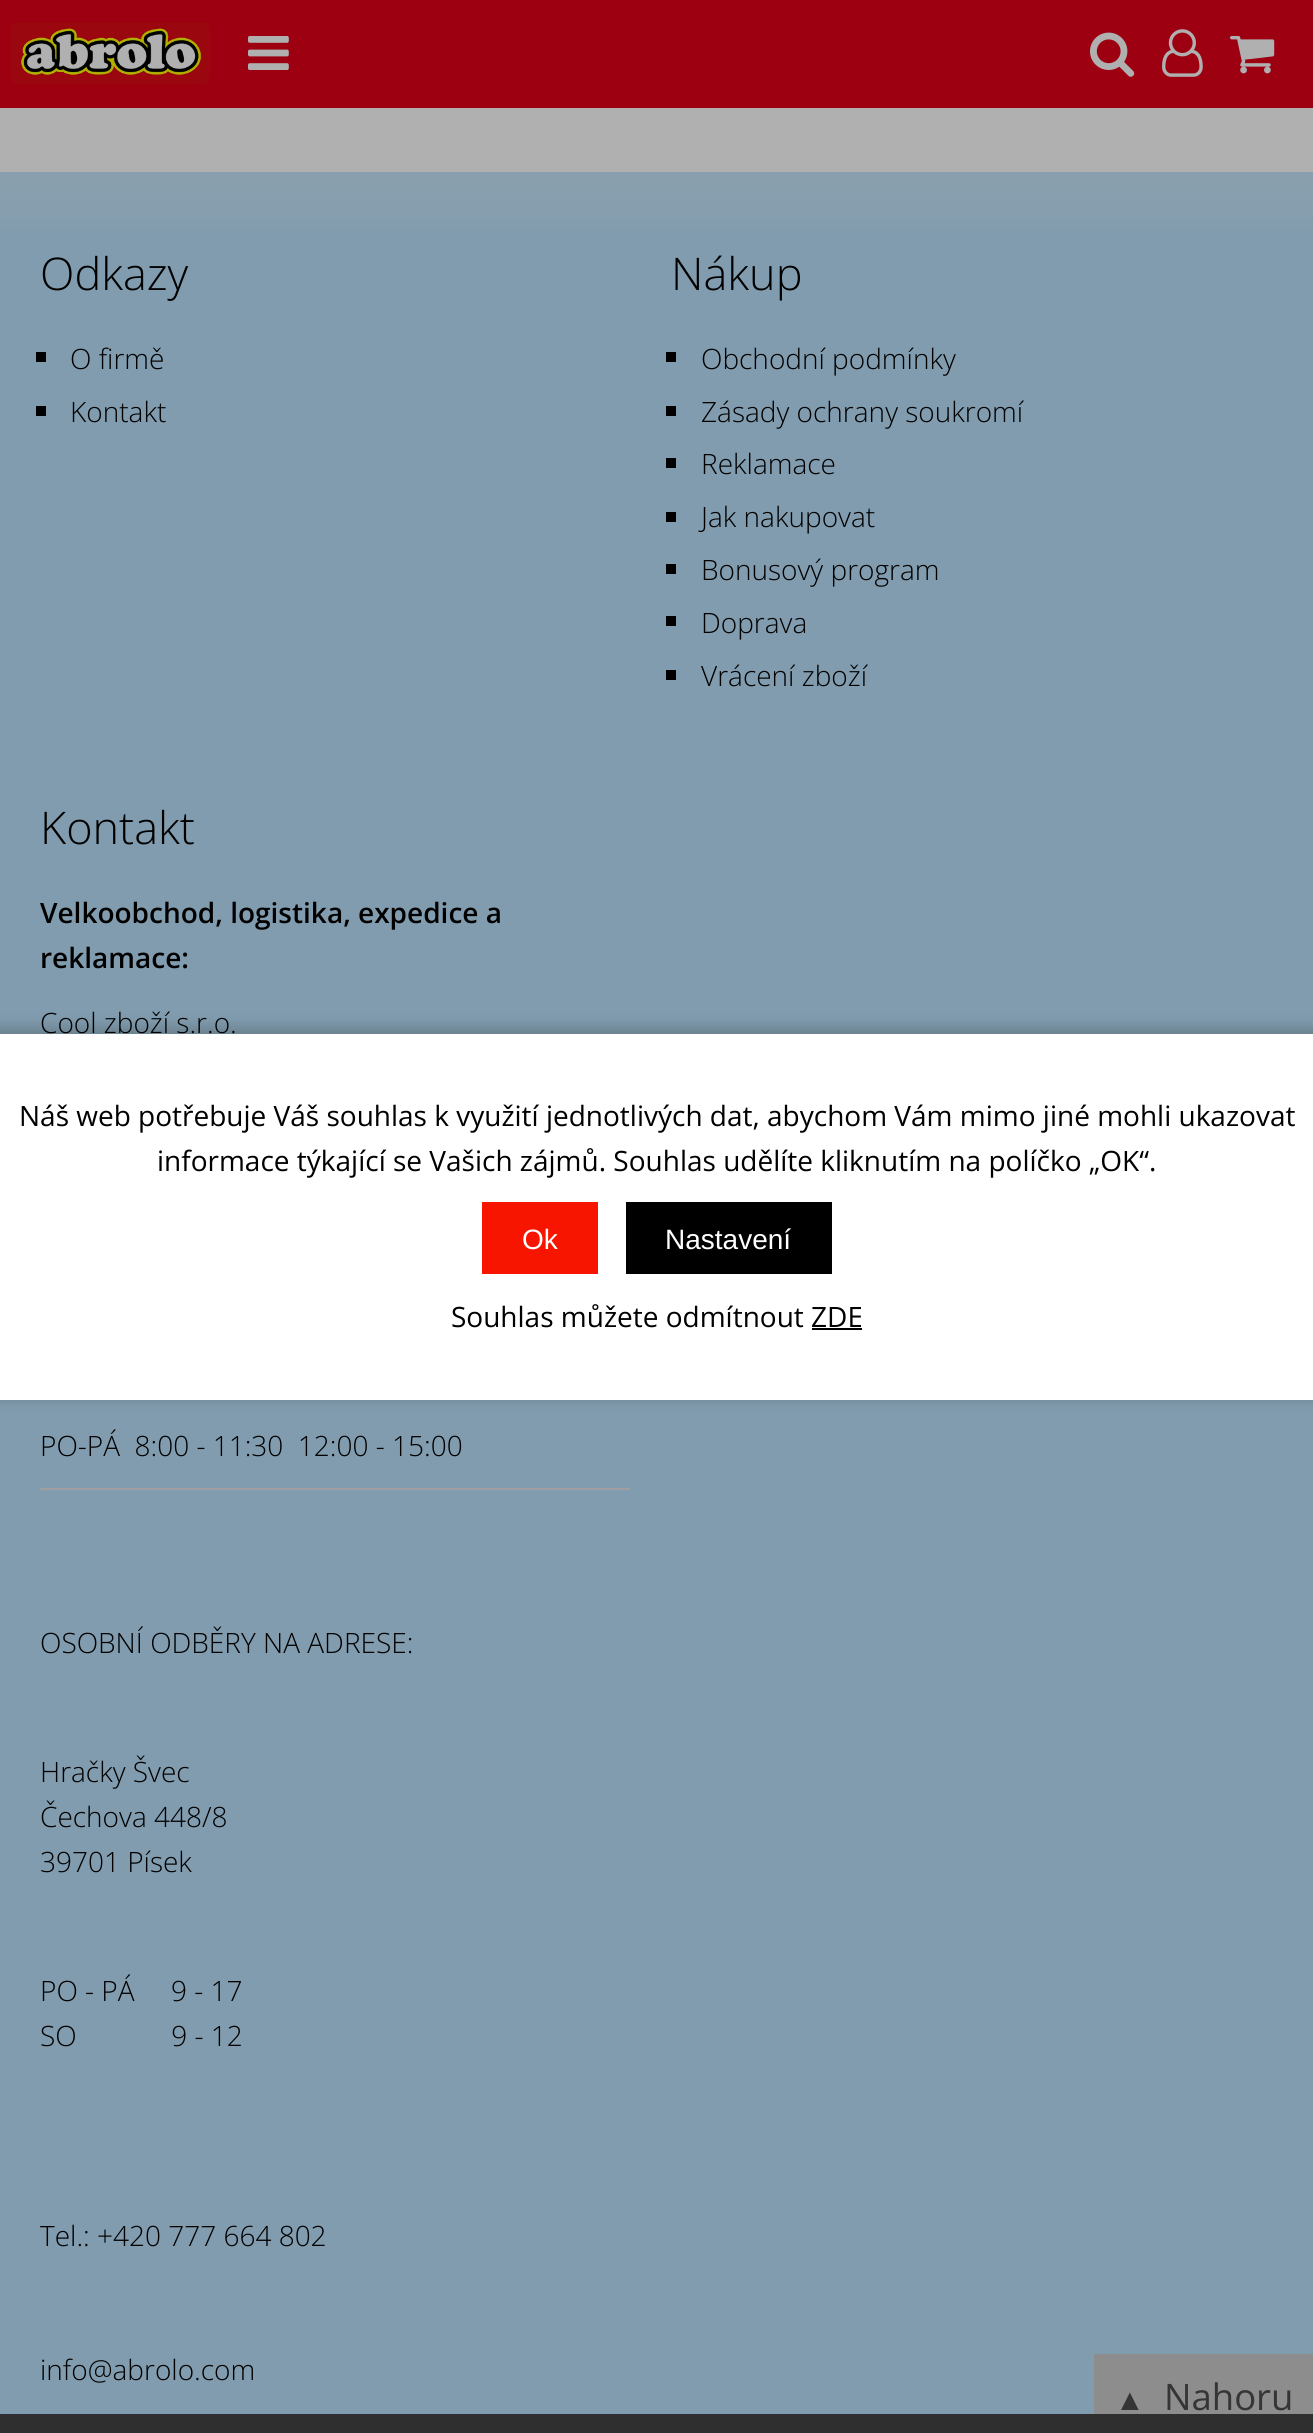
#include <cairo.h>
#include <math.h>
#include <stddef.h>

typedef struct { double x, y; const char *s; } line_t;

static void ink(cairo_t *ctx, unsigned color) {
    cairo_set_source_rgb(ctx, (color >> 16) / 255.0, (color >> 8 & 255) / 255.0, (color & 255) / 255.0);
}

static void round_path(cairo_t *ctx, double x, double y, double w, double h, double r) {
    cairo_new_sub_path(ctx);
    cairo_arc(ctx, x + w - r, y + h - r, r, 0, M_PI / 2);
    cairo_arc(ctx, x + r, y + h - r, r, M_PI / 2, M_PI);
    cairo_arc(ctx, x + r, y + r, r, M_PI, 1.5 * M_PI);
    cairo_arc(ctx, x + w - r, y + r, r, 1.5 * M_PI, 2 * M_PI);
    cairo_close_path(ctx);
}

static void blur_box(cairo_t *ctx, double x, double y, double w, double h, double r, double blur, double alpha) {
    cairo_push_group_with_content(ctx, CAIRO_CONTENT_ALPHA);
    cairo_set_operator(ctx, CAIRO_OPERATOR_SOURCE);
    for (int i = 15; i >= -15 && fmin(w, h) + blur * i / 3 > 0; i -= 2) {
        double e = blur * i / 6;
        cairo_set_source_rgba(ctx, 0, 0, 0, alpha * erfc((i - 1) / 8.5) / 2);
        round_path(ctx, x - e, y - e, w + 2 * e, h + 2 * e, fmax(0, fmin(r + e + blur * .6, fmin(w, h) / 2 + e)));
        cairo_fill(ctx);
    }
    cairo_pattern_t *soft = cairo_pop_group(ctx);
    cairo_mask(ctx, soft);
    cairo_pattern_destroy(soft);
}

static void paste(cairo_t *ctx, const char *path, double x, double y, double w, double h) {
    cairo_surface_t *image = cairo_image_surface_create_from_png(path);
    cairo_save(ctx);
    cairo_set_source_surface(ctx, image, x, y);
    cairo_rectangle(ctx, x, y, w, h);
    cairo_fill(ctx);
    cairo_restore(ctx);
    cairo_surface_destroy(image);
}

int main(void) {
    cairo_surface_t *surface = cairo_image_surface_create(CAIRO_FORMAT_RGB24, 1313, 2433);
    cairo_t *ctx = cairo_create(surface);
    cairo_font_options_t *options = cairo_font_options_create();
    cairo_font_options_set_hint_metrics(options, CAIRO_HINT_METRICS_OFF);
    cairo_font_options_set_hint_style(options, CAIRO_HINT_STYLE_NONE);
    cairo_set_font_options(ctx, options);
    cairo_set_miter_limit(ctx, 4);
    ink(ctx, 0x819CAE);
    cairo_paint(ctx);
    paste(ctx, "media/1.png", 0, 172, 1313, 57);
    ink(ctx, 0x9C0011);
    cairo_rectangle(ctx, 0, 0, 1313, 108);
    cairo_fill(ctx);
    paste(ctx, "media/2.png", 10, 22, 200, 62);
    paste(ctx, "media/3.png", 248, 36, 41, 34);
    paste(ctx, "media/4.png", 1090, 32, 45, 45);
    paste(ctx, "media/5.png", 1162, 29, 41, 48);
    paste(ctx, "media/6.png", 1230, 36, 45, 38);
    ink(ctx, 0xB0B0B0);
    cairo_rectangle(ctx, 0, 108, 1313, 64);
    cairo_fill(ctx);
    cairo_select_font_face(ctx, "Open Sans Light", CAIRO_FONT_SLANT_NORMAL, CAIRO_FONT_WEIGHT_NORMAL);
    cairo_set_font_size(ctx, 45);
    ink(ctx, 0x000000);
    cairo_move_to(ctx, 40, 290);
    cairo_show_text(ctx, "Odkazy");
    cairo_rectangle(ctx, 36, 352, 10, 10);
    cairo_fill(ctx);
    cairo_set_font_size(ctx, 28);
    cairo_move_to(ctx, 70, 369);
    cairo_show_text(ctx, "O firmě");
    cairo_rectangle(ctx, 36, 406, 10, 10);
    cairo_fill(ctx);
    cairo_move_to(ctx, 70, 422);
    cairo_show_text(ctx, "Kontakt");
    cairo_set_font_size(ctx, 45);
    cairo_move_to(ctx, 671, 290);
    cairo_show_text(ctx, "Nákup");
    cairo_rectangle(ctx, 666, 352, 10, 10);
    cairo_fill(ctx);
    cairo_set_font_size(ctx, 28);
    cairo_move_to(ctx, 701, 369);
    cairo_show_text(ctx, "Obchodní podmínky");
    cairo_rectangle(ctx, 666, 406, 10, 10);
    cairo_fill(ctx);
    cairo_move_to(ctx, 701, 422);
    cairo_show_text(ctx, "Zásady ochrany soukromí");
    cairo_rectangle(ctx, 666, 458, 10, 10);
    cairo_fill(ctx);
    cairo_move_to(ctx, 701, 474);
    cairo_show_text(ctx, "Reklamace");
    cairo_rectangle(ctx, 666, 512, 10, 10);
    cairo_fill(ctx);
    cairo_move_to(ctx, 701, 527);
    cairo_show_text(ctx, "Jak nakupovat");
    cairo_rectangle(ctx, 666, 564, 10, 10);
    cairo_fill(ctx);
    cairo_move_to(ctx, 701, 580);
    cairo_show_text(ctx, "Bonusový program");
    cairo_rectangle(ctx, 666, 616, 10, 10);
    cairo_fill(ctx);
    cairo_move_to(ctx, 701, 633);
    cairo_show_text(ctx, "Doprava");
    cairo_rectangle(ctx, 666, 670, 10, 10);
    cairo_fill(ctx);
    cairo_move_to(ctx, 701, 686);
    cairo_show_text(ctx, "Vrácení zboží");
    cairo_set_font_size(ctx, 45);
    cairo_move_to(ctx, 40, 844);
    cairo_show_text(ctx, "Kontakt");
    cairo_select_font_face(ctx, "Open Sans SemiBold", CAIRO_FONT_SLANT_NORMAL, CAIRO_FONT_WEIGHT_NORMAL);
    cairo_set_font_size(ctx, 28);
    cairo_move_to(ctx, 40, 923);
    cairo_show_text(ctx, "Velkoobchod, logistika, expedice a");
    cairo_move_to(ctx, 40, 968);
    cairo_show_text(ctx, "reklamace:");
    cairo_select_font_face(ctx, "Open Sans Light", CAIRO_FONT_SLANT_NORMAL, CAIRO_FONT_WEIGHT_NORMAL);
    cairo_move_to(ctx, 40, 1033);
    cairo_show_text(ctx, "Cool zboží s.r.o.");
    cairo_move_to(ctx, 40, 1456);
    cairo_show_text(ctx, "PO-PÁ  8:00 - 11:30  12:00 - 15:00");
    ink(ctx, 0x9F9F9F);
    cairo_rectangle(ctx, 40, 1488, 590, 2);
    cairo_fill(ctx);
    ink(ctx, 0x000000);
    {
        static const line_t items[] = {
            {40, 1653, "OSOBNÍ ODBĚRY NA ADRESE:"},
            {40, 1782, "Hračky Švec"},
            {40, 1827, "Čechova 448/8"},
            {40, 1872, "39701 Písek"},
            {40, 2001, "PO - PÁ     9 - 17"},
            {40, 2046, "SO             9 - 12"},
            {40, 2246, "Tel.: +420 777 664 802"},
            {40, 2380, "info@abrolo.com"},
        };
        for (size_t i = 0; i < sizeof items / sizeof *items; i++) {
            cairo_move_to(ctx, items[i].x, items[i].y);
            cairo_show_text(ctx, items[i].s);
        }
    }
    ink(ctx, 0x2F2F2F);
    cairo_rectangle(ctx, 0, 2414, 1313, 19);
    cairo_fill(ctx);
    ink(ctx, 0x000000);
    blur_box(ctx, -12, 1030, 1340, 366, 0, 8, 0.25);
    ink(ctx, 0xFFFFFF);
    cairo_rectangle(ctx, 0, 1034, 1313, 366);
    cairo_fill(ctx);
    cairo_select_font_face(ctx, "Open Sans", CAIRO_FONT_SLANT_NORMAL, CAIRO_FONT_WEIGHT_NORMAL);
    ink(ctx, 0x000000);
    cairo_move_to(ctx, 19, 1126);
    cairo_show_text(ctx, "Náš web potřebuje Váš souhlas k využití jednotlivých dat, abychom Vám mimo jiné mohli ukazovat");
    cairo_move_to(ctx, 157, 1171);
    cairo_show_text(ctx, "informace týkající se Vašich zájmů. Souhlas udělíte kliknutím na políčko „OK“.");
    ink(ctx, 0xF71500);
    cairo_rectangle(ctx, 482, 1202, 116, 72);
    cairo_fill(ctx);
    cairo_select_font_face(ctx, "Liberation Sans", CAIRO_FONT_SLANT_NORMAL, CAIRO_FONT_WEIGHT_NORMAL);
    ink(ctx, 0xFFFFFF);
    cairo_move_to(ctx, 522, 1249);
    cairo_show_text(ctx, "Ok");
    ink(ctx, 0x000000);
    cairo_rectangle(ctx, 626, 1202, 206, 72);
    cairo_fill(ctx);
    ink(ctx, 0xFFFFFF);
    cairo_move_to(ctx, 665, 1249);
    cairo_show_text(ctx, "Nastavení");
    cairo_select_font_face(ctx, "Open Sans", CAIRO_FONT_SLANT_NORMAL, CAIRO_FONT_WEIGHT_NORMAL);
    ink(ctx, 0x000000);
    cairo_move_to(ctx, 451, 1327);
    cairo_show_text(ctx, "Souhlas můžete odmítnout ZDE");
    cairo_rectangle(ctx, 812, 1328, 50, 2);
    cairo_fill(ctx);
    ink(ctx, 0x8D8D8D);
    cairo_rectangle(ctx, 1094, 2354, 219, 60);
    cairo_fill(ctx);
    cairo_select_font_face(ctx, "Liberation Sans", CAIRO_FONT_SLANT_NORMAL, CAIRO_FONT_WEIGHT_NORMAL);
    cairo_set_font_size(ctx, 30);
    ink(ctx, 0x353535);
    cairo_move_to(ctx, 1115, 2410);
    cairo_show_text(ctx, "▲");
    cairo_select_font_face(ctx, "Open Sans", CAIRO_FONT_SLANT_NORMAL, CAIRO_FONT_WEIGHT_NORMAL);
    cairo_set_font_size(ctx, 36.5);
    cairo_move_to(ctx, 1164, 2410);
    cairo_show_text(ctx, "Nahoru");
    cairo_surface_write_to_png(surface, "image.png");
    cairo_font_options_destroy(options);
    cairo_destroy(ctx);
    cairo_surface_destroy(surface);
    return 0;
}
